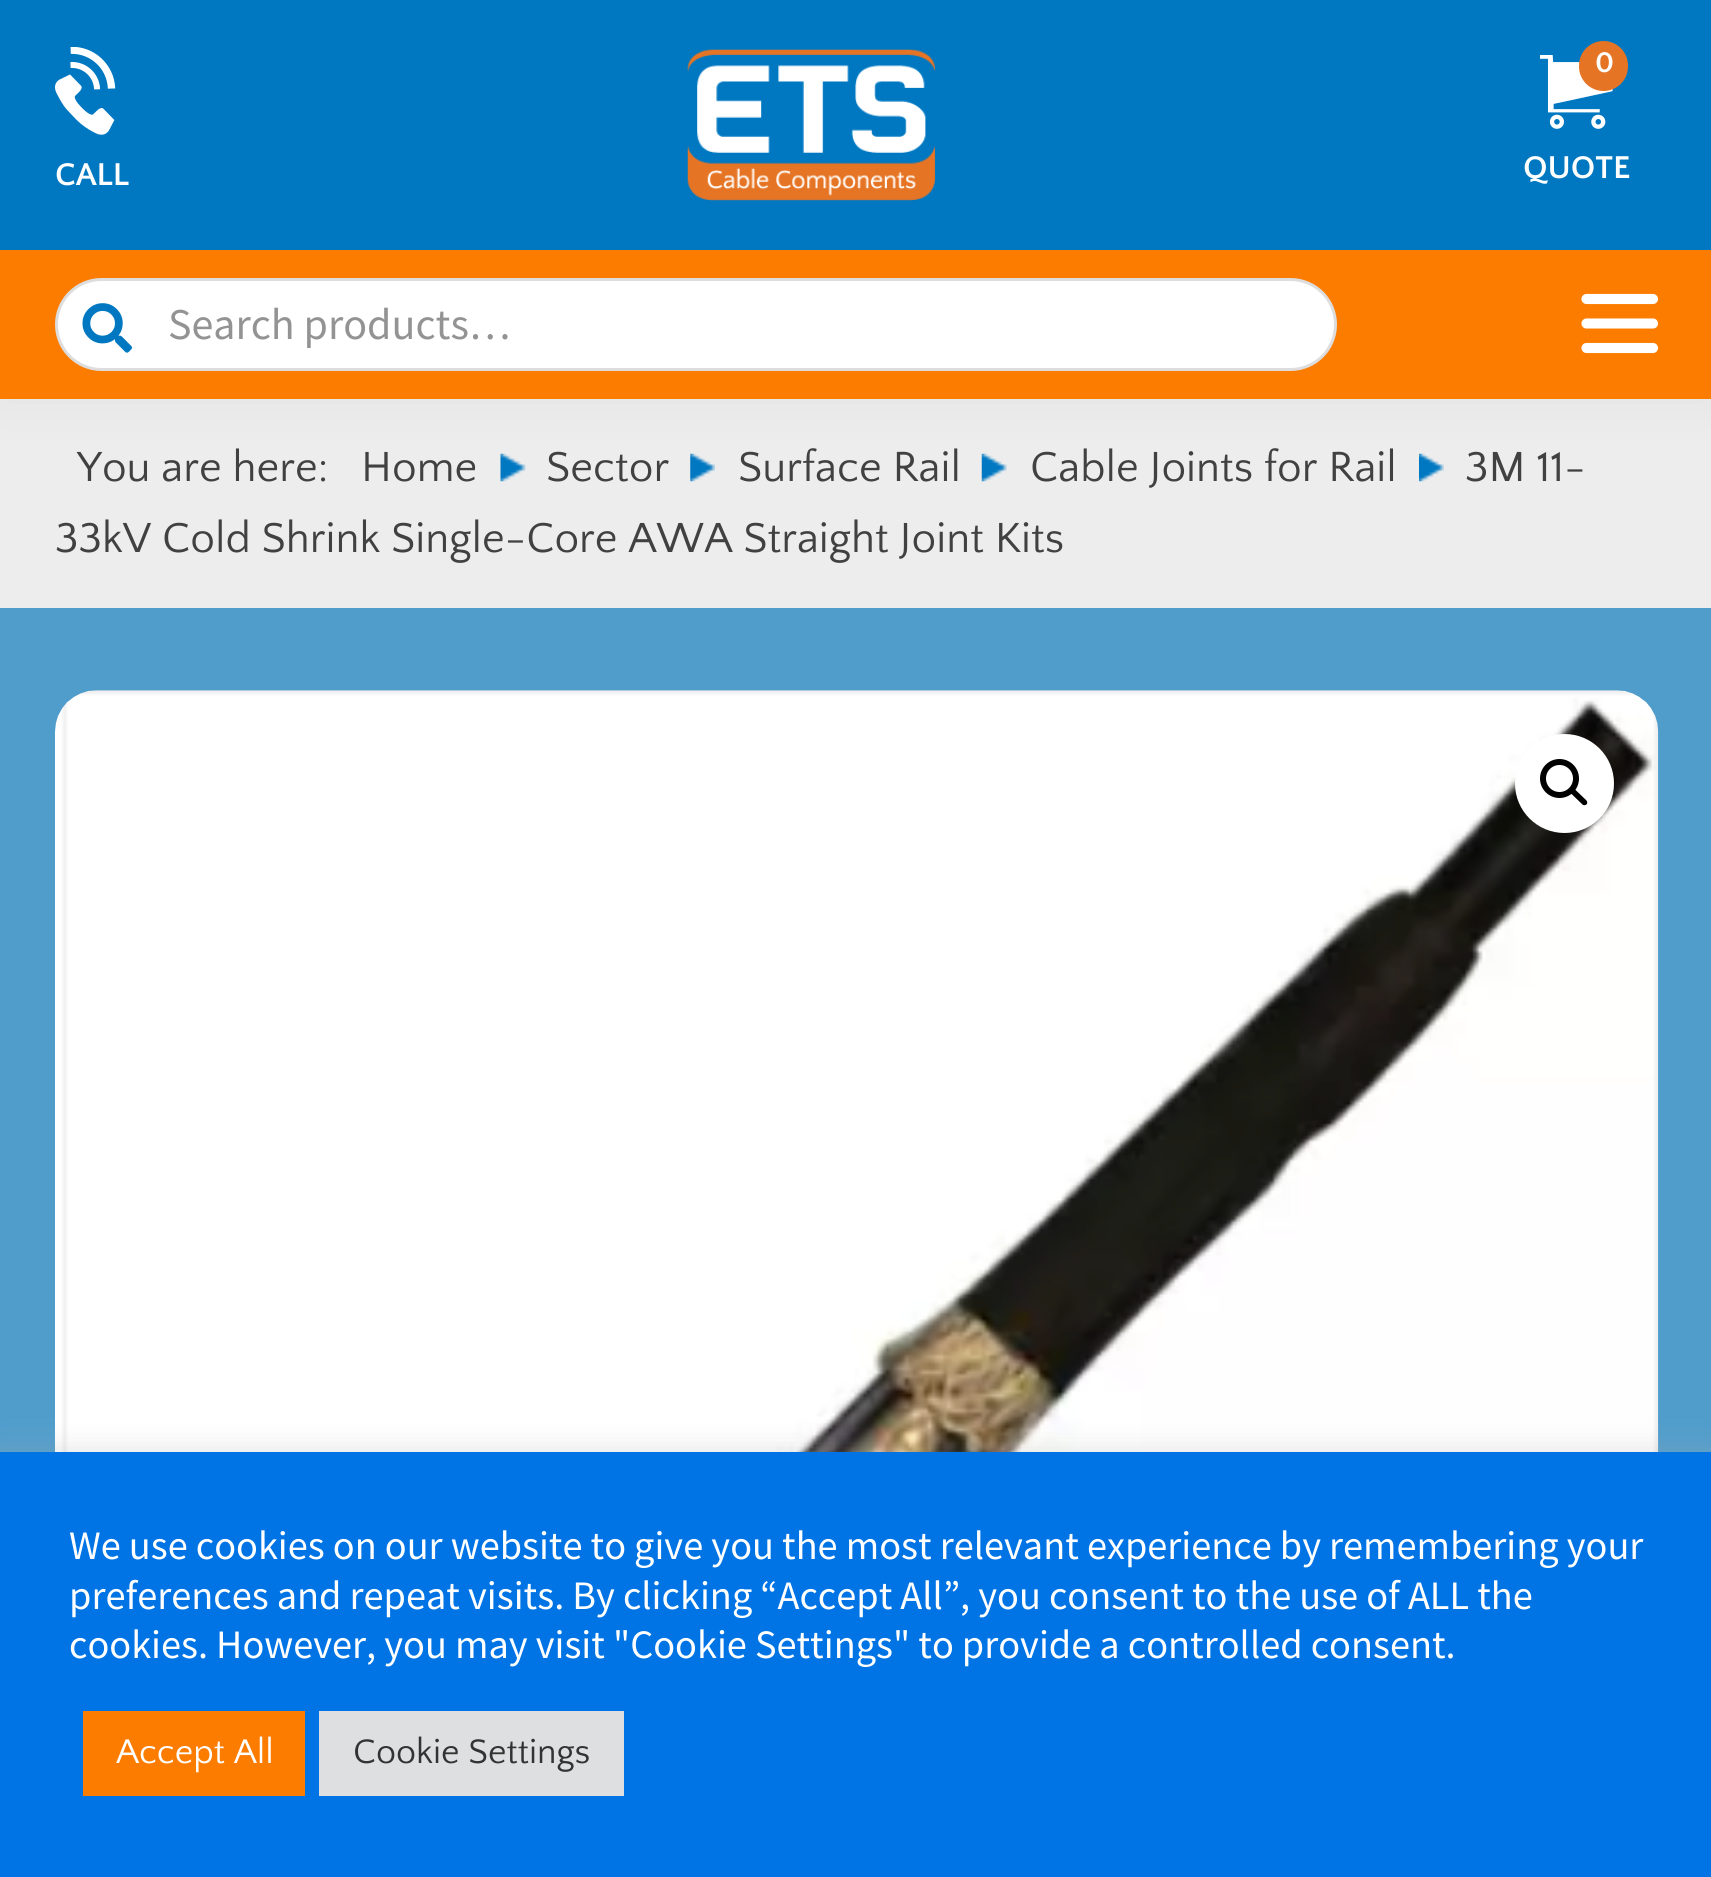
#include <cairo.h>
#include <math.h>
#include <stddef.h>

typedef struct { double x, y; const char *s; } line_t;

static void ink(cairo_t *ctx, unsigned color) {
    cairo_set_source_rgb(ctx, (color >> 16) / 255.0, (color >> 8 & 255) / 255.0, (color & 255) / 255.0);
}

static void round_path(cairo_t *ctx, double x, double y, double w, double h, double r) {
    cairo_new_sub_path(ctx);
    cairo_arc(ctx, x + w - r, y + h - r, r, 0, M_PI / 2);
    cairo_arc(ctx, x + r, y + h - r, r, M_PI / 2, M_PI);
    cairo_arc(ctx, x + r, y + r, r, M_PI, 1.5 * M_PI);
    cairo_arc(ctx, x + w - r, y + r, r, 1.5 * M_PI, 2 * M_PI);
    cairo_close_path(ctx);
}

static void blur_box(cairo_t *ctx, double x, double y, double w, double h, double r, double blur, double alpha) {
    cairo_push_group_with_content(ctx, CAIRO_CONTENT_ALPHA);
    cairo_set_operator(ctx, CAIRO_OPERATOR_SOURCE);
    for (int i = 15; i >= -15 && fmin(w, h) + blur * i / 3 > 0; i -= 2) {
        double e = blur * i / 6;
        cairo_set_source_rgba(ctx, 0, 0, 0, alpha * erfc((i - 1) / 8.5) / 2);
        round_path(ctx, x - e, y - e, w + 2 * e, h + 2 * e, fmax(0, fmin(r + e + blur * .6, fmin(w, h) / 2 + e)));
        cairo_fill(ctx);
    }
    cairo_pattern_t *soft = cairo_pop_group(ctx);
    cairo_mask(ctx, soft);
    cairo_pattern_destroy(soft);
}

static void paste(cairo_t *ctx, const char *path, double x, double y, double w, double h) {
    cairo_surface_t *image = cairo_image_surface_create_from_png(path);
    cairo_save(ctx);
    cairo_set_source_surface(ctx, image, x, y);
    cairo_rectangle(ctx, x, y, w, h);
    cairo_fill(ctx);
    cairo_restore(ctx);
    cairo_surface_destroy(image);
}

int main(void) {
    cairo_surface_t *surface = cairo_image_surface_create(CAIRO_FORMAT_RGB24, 1711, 1877);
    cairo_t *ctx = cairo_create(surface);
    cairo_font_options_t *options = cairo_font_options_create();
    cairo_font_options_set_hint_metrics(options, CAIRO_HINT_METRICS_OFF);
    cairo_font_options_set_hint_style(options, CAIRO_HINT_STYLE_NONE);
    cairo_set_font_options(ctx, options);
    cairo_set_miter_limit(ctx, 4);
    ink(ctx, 0xEDEDED);
    cairo_paint(ctx);
    ink(ctx, 0x000000);
    blur_box(ctx, 0, 0, 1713, 399, 0, 27.5, 0.05);
    ink(ctx, 0x0078C1);
    cairo_rectangle(ctx, 0, 0, 1711, 250);
    cairo_fill(ctx);
    paste(ctx, "media/1.png", 55, 47, 61, 88);
    cairo_select_font_face(ctx, "Quattrocento Sans", CAIRO_FONT_SLANT_NORMAL, CAIRO_FONT_WEIGHT_BOLD);
    cairo_set_font_size(ctx, 33);
    ink(ctx, 0xFFFFFF);
    cairo_move_to(ctx, 55, 185);
    cairo_show_text(ctx, "CALL");
    paste(ctx, "media/2.png", 687, 49, 248, 152);
    paste(ctx, "media/3.png", 1540, 55, 73, 74);
    ink(ctx, 0xE67425);
    round_path(ctx, 1579, 41, 49, 50, 24.5);
    cairo_fill(ctx);
    cairo_set_font_size(ctx, 30);
    ink(ctx, 0xFFFFFF);
    cairo_move_to(ctx, 1595, 72);
    cairo_show_text(ctx, "0");
    cairo_set_font_size(ctx, 33);
    cairo_move_to(ctx, 1523, 178);
    cairo_show_text(ctx, "QUOTE");
    ink(ctx, 0xFC7C00);
    cairo_rectangle(ctx, 0, 250, 1711, 149);
    cairo_fill(ctx);
    ink(ctx, 0xFFFFFF);
    round_path(ctx, 56.5, 279.5, 1279, 90, 45);
    cairo_fill_preserve(ctx);
    ink(ctx, 0xDDDDDD);
    cairo_set_line_width(ctx, 3);
    cairo_stroke(ctx);
    paste(ctx, "media/4.png", 82, 303, 50, 50);
    cairo_select_font_face(ctx, "Source Sans Pro", CAIRO_FONT_SLANT_NORMAL, CAIRO_FONT_WEIGHT_NORMAL);
    cairo_set_font_size(ctx, 44);
    ink(ctx, 0x939393);
    cairo_move_to(ctx, 168, 339);
    cairo_show_text(ctx, "Search products…");
    cairo_new_path(ctx);
    cairo_move_to(ctx, 1586.5, 299);
    cairo_line_to(ctx, 1653, 299);
    ink(ctx, 0xFFFFFF);
    cairo_set_line_width(ctx, 10.1);
    cairo_set_line_cap(ctx, CAIRO_LINE_CAP_ROUND);
    cairo_stroke(ctx);
    cairo_new_path(ctx);
    cairo_move_to(ctx, 1586.5, 323.5);
    cairo_line_to(ctx, 1653, 323.5);
    cairo_stroke(ctx);
    cairo_new_path(ctx);
    cairo_move_to(ctx, 1586.5, 348);
    cairo_line_to(ctx, 1653, 348);
    cairo_stroke(ctx);
    cairo_select_font_face(ctx, "Quattrocento Sans", CAIRO_FONT_SLANT_NORMAL, CAIRO_FONT_WEIGHT_NORMAL);
    ink(ctx, 0x414141);
    cairo_move_to(ctx, 77, 481);
    cairo_show_text(ctx, "You are here:");
    cairo_move_to(ctx, 361, 481);
    cairo_show_text(ctx, "Home");
    paste(ctx, "media/5.png", 500, 453, 26, 29);
    cairo_move_to(ctx, 546, 481);
    cairo_show_text(ctx, "Sector");
    paste(ctx, "media/6.png", 690, 453, 25, 29);
    cairo_move_to(ctx, 738, 481);
    cairo_show_text(ctx, "Surface Rail");
    paste(ctx, "media/7.png", 981, 453, 26, 29);
    cairo_move_to(ctx, 1030, 481);
    cairo_show_text(ctx, "Cable Joints for Rail");
    paste(ctx, "media/8.png", 1419, 453, 25, 29);
    cairo_move_to(ctx, 1465, 481);
    cairo_show_text(ctx, "3M 11-");
    cairo_move_to(ctx, 55, 552);
    cairo_show_text(ctx, "33kV Cold Shrink Single-Core AWA Straight Joint Kits");
    ink(ctx, 0x509DCC);
    cairo_rectangle(ctx, 0, 608, 1711, 844);
    cairo_fill(ctx);
    paste(ctx, "media/9.png", 55, 690, 1604, 762);
    ink(ctx, 0xFFFFFF);
    cairo_arc(ctx, 1564.5, 783.5, 49.5, 0, 2 * M_PI);
    cairo_fill(ctx);
    cairo_arc(ctx, 1559.5, 778.5, 16.5, 0, 2 * M_PI);
    ink(ctx, 0x000000);
    cairo_set_line_width(ctx, 6);
    cairo_set_line_cap(ctx, CAIRO_LINE_CAP_BUTT);
    cairo_stroke(ctx);
    cairo_new_path(ctx);
    cairo_move_to(ctx, 1570.5, 789);
    cairo_curve_to(ctx, 1572, 788, 1573.5, 788, 1574.5, 789);
    cairo_line_to(ctx, 1586.5, 800.5);
    cairo_curve_to(ctx, 1587.5, 802, 1587.5, 803.5, 1586.5, 804.5);
    cairo_curve_to(ctx, 1585, 805.5, 1583.5, 805.5, 1582.5, 804.5);
    cairo_line_to(ctx, 1570.5, 793);
    cairo_curve_to(ctx, 1569.5, 792, 1569.5, 790, 1570.5, 789);
    cairo_close_path(ctx);
    cairo_fill(ctx);
    ink(ctx, 0xACABAB);
    blur_box(ctx, 0, 1449, 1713, 427, 0, 14, 0.3);
    ink(ctx, 0x0073E5);
    cairo_rectangle(ctx, 0, 1452, 1711, 425);
    cairo_fill(ctx);
    cairo_select_font_face(ctx, "Source Sans Pro", CAIRO_FONT_SLANT_NORMAL, CAIRO_FONT_WEIGHT_NORMAL);
    cairo_set_font_size(ctx, 40.35);
    ink(ctx, 0xFFFFFF);
    {
        static const line_t items[] = {
            {69, 1559, "We use cookies on our website to give you the most relevant experience by remembering your"},
            {69, 1609, "preferences and repeat visits. By clicking “Accept All”, you consent to the use of ALL the"},
            {69, 1658, "cookies. However, you may visit \"Cookie Settings\" to provide a controlled consent."},
        };
        for (size_t i = 0; i < sizeof items / sizeof *items; i++) {
            cairo_move_to(ctx, items[i].x, items[i].y);
            cairo_show_text(ctx, items[i].s);
        }
    }
    ink(ctx, 0xFC7C00);
    cairo_rectangle(ctx, 83, 1711, 222, 85);
    cairo_fill(ctx);
    cairo_select_font_face(ctx, "Quattrocento Sans", CAIRO_FONT_SLANT_NORMAL, CAIRO_FONT_WEIGHT_NORMAL);
    cairo_set_font_size(ctx, 35.75);
    ink(ctx, 0xFFFFFF);
    cairo_move_to(ctx, 116, 1763);
    cairo_show_text(ctx, "Accept All");
    ink(ctx, 0xDEDFE0);
    cairo_rectangle(ctx, 319, 1711, 305, 85);
    cairo_fill(ctx);
    ink(ctx, 0x333333);
    cairo_move_to(ctx, 353, 1763);
    cairo_show_text(ctx, "Cookie Settings");
    cairo_surface_write_to_png(surface, "image.png");
    cairo_font_options_destroy(options);
    cairo_destroy(ctx);
    cairo_surface_destroy(surface);
    return 0;
}
